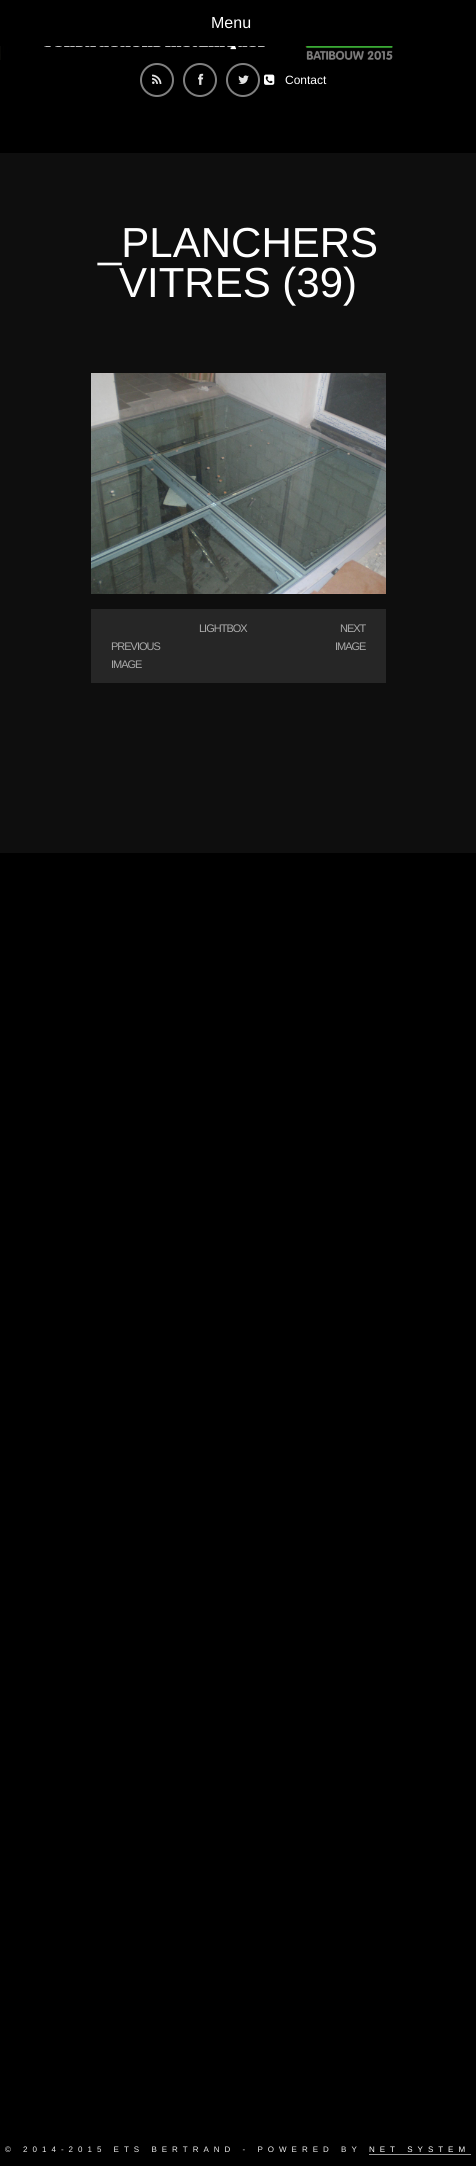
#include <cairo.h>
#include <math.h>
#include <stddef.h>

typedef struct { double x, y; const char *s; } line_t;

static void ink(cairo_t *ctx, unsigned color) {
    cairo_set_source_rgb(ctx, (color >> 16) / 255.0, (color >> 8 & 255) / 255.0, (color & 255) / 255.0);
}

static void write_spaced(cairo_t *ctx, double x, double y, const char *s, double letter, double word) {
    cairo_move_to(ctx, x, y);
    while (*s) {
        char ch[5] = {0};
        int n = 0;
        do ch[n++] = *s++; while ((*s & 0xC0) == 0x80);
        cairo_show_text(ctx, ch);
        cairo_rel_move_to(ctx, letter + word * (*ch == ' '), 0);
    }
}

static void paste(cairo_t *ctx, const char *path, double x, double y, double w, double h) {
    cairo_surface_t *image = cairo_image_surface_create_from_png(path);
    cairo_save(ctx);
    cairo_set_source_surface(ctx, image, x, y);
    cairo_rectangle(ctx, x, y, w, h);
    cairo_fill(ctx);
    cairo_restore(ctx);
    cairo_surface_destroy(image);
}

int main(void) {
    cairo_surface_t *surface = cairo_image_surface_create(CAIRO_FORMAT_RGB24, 476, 2166);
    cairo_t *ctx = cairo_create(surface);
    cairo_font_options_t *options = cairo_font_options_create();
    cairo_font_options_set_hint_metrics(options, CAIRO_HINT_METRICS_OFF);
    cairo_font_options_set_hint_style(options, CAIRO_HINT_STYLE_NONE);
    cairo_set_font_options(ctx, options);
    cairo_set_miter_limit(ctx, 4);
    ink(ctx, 0x000000);
    cairo_paint(ctx);
    cairo_select_font_face(ctx, "Liberation Sans", CAIRO_FONT_SLANT_NORMAL, CAIRO_FONT_WEIGHT_NORMAL);
    cairo_set_font_size(ctx, 16);
    ink(ctx, 0xFFFFFF);
    cairo_move_to(ctx, 211, 28);
    cairo_show_text(ctx, "Menu");
    paste(ctx, "media/1.png", 0, 46, 266, 14);
    paste(ctx, "media/2.png", 305, 46, 88, 14);
    cairo_arc(ctx, 157, 80, 16, 0, 2 * M_PI);
    ink(ctx, 0x808080);
    cairo_stroke(ctx);
    paste(ctx, "media/3.png", 152, 74, 10, 10);
    cairo_arc(ctx, 200, 80, 16, 0, 2 * M_PI);
    cairo_stroke(ctx);
    paste(ctx, "media/4.png", 198, 73, 6, 12);
    cairo_arc(ctx, 243, 80, 16, 0, 2 * M_PI);
    cairo_stroke(ctx);
    paste(ctx, "media/5.png", 238, 75, 11, 9);
    paste(ctx, "media/6.png", 264, 74, 11, 11);
    cairo_set_font_size(ctx, 12);
    ink(ctx, 0xFFFFFF);
    cairo_move_to(ctx, 285, 84);
    cairo_show_text(ctx, "Contact");
    ink(ctx, 0x0E0E0E);
    cairo_rectangle(ctx, 0, 153, 476, 700);
    cairo_fill(ctx);
    cairo_set_font_size(ctx, 42);
    ink(ctx, 0xFFFFFF);
    cairo_move_to(ctx, 98, 257);
    cairo_show_text(ctx, "_PLANCHERS");
    cairo_move_to(ctx, 119, 297);
    cairo_show_text(ctx, "VITRES (39)");
    paste(ctx, "media/7.png", 91, 373, 295, 221);
    ink(ctx, 0x262626);
    cairo_rectangle(ctx, 91, 609, 295, 74);
    cairo_fill(ctx);
    cairo_set_font_size(ctx, 11);
    ink(ctx, 0xAAAAAA);
    {
        static const line_t items[] = {
            {199, 632, "LIGHTBOX"},
            {340, 632, "NEXT"},
            {335, 650, "IMAGE"},
            {111, 650, "PREVIOUS"},
            {111, 668, "IMAGE"},
        };
        for (size_t i = 0; i < sizeof items / sizeof *items; i++) {
            write_spaced(ctx, items[i].x, items[i].y, items[i].s, -1, 0);
        }
    }
    cairo_set_font_size(ctx, 8);
    ink(ctx, 0xEEEEEE);
    write_spaced(ctx, 5, 2152, "© 2014-2015 ETS BERTRAND - POWERED BY", 5, 0);
    ink(ctx, 0xFFFFFF);
    write_spaced(ctx, 369, 2152, "NET SYSTEM", 5, 0);
    ink(ctx, 0x999999);
    cairo_rectangle(ctx, 369, 2154, 102, 1);
    cairo_fill(ctx);
    cairo_surface_write_to_png(surface, "image.png");
    cairo_font_options_destroy(options);
    cairo_destroy(ctx);
    cairo_surface_destroy(surface);
    return 0;
}
